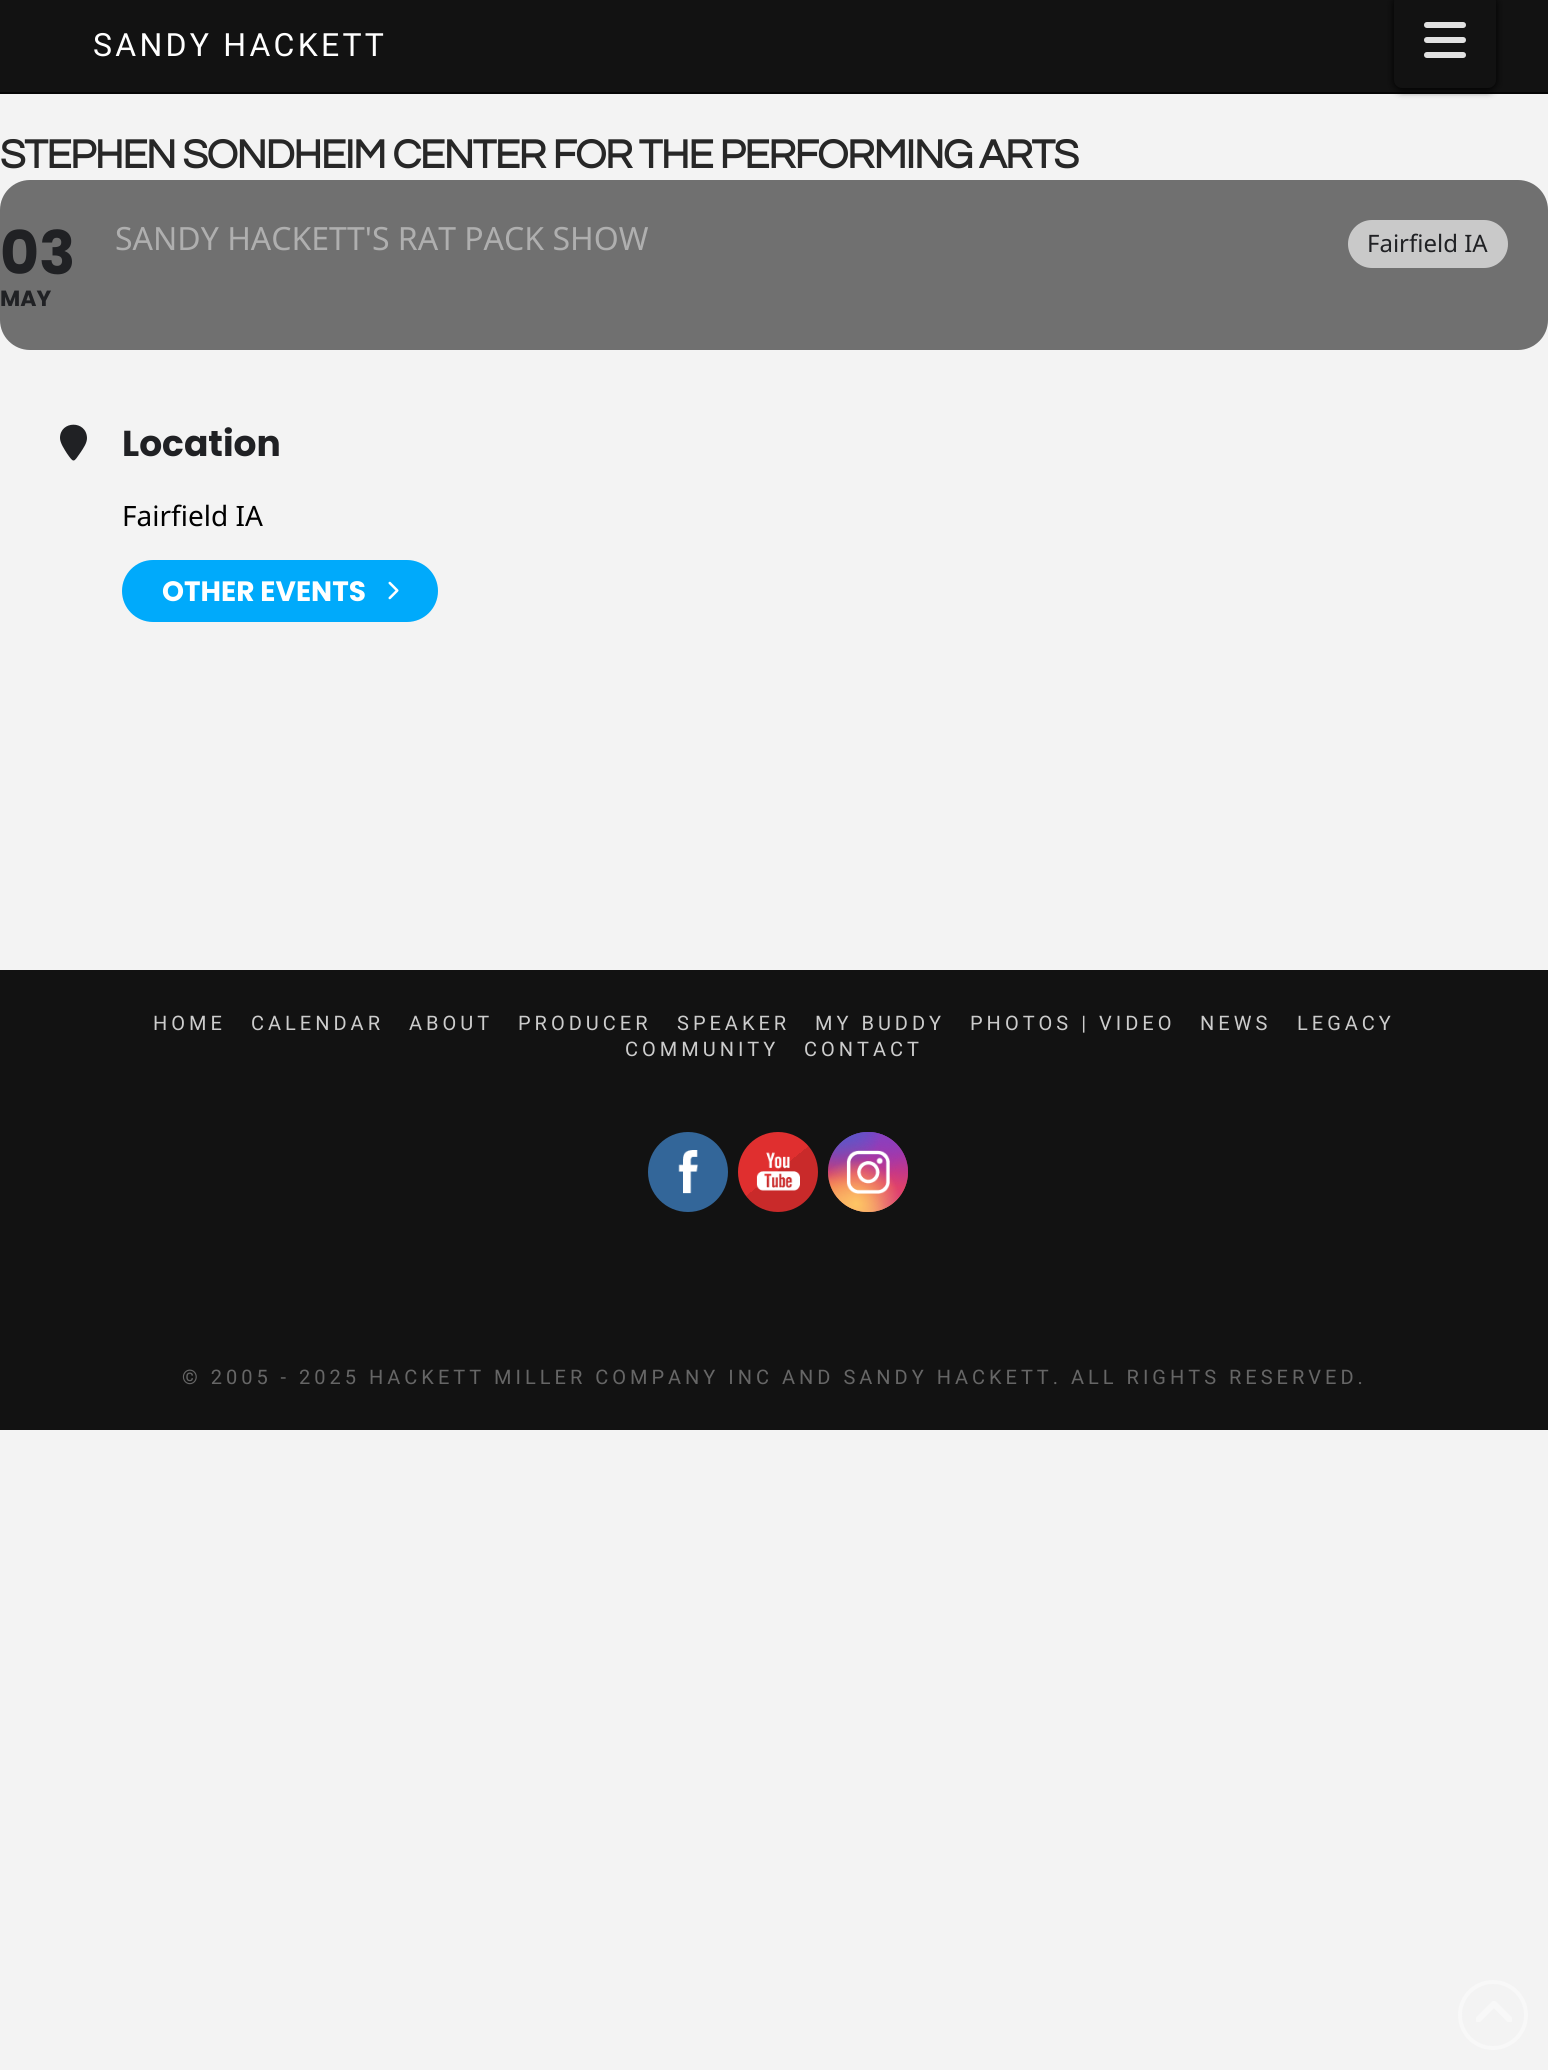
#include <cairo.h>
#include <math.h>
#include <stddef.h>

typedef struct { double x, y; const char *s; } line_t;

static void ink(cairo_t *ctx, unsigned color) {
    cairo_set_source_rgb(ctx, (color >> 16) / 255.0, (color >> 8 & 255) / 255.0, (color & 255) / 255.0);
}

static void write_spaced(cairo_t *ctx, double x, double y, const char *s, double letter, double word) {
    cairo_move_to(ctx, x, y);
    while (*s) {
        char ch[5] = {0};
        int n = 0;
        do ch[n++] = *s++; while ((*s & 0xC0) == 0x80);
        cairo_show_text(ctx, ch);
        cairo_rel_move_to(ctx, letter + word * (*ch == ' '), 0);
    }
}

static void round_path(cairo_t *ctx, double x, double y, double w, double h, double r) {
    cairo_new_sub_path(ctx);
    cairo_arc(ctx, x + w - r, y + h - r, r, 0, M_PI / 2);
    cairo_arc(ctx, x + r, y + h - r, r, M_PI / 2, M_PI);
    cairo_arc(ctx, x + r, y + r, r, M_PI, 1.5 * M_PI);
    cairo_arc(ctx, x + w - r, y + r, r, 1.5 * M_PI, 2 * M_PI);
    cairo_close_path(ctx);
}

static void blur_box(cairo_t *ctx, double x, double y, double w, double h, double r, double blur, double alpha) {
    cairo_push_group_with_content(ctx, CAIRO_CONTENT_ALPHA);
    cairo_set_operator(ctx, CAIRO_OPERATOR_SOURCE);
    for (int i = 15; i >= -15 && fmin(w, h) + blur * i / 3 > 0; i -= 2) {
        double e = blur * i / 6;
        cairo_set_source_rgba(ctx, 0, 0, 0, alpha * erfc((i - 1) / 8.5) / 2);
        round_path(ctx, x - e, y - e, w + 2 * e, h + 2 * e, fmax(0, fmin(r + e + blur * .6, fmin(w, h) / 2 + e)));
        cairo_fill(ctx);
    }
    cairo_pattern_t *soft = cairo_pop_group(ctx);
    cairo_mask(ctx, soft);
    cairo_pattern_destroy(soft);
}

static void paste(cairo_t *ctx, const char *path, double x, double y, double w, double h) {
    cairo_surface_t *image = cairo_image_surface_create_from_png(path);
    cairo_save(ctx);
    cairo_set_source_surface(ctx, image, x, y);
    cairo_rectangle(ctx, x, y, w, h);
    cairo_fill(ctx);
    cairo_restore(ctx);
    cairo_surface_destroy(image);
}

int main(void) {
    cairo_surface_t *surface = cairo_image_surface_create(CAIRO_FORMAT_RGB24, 1548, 2070);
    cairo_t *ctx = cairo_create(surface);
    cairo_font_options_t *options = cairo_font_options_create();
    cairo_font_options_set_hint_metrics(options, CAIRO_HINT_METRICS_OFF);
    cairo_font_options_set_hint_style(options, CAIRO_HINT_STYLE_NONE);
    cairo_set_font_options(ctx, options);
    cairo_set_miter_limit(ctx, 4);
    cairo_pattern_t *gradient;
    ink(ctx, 0xF3F3F3);
    cairo_paint(ctx);
    ink(ctx, 0x121212);
    cairo_rectangle(ctx, 0, 0, 1548, 92);
    cairo_fill(ctx);
    ink(ctx, 0x050505);
    cairo_rectangle(ctx, 0, 92, 1548, 2);
    cairo_fill(ctx);
    cairo_select_font_face(ctx, "Roboto", CAIRO_FONT_SLANT_NORMAL, CAIRO_FONT_WEIGHT_NORMAL);
    cairo_set_font_size(ctx, 32);
    ink(ctx, 0xFFFFFF);
    write_spaced(ctx, 93, 56, "SANDY HACKETT", 3.25, 0);
    ink(ctx, 0x000000);
    blur_box(ctx, 1394, -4, 102, 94, 8, 4, 1);
    ink(ctx, 0x121212);
    round_path(ctx, 1394, -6, 102, 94, 8);
    cairo_fill(ctx);
    paste(ctx, "media/1.png", 1424, 22, 42, 36);
    cairo_select_font_face(ctx, "Questrial", CAIRO_FONT_SLANT_NORMAL, CAIRO_FONT_WEIGHT_BOLD);
    cairo_set_font_size(ctx, 41.6);
    ink(ctx, 0x272727);
    write_spaced(ctx, 0, 168, "STEPHEN SONDHEIM CENTER FOR THE PERFORMING ARTS", -1.45, 0);
    ink(ctx, 0x707070);
    round_path(ctx, 0, 180, 1548, 170, 30);
    cairo_fill(ctx);
    cairo_select_font_face(ctx, "Poppins", CAIRO_FONT_SLANT_NORMAL, CAIRO_FONT_WEIGHT_BOLD);
    cairo_set_font_size(ctx, 60);
    ink(ctx, 0x202124);
    cairo_move_to(ctx, 0, 274);
    cairo_show_text(ctx, "03");
    cairo_set_font_size(ctx, 22);
    cairo_move_to(ctx, 0, 306);
    cairo_show_text(ctx, "MAY");
    cairo_select_font_face(ctx, "Noto Sans", CAIRO_FONT_SLANT_NORMAL, CAIRO_FONT_WEIGHT_NORMAL);
    cairo_set_font_size(ctx, 32);
    ink(ctx, 0xAFAFAF);
    cairo_move_to(ctx, 115, 250);
    cairo_show_text(ctx, "SANDY HACKETT'S RAT PACK SHOW");
    ink(ctx, 0xC9C9C9);
    round_path(ctx, 1348, 220, 160, 48, 24);
    cairo_fill(ctx);
    cairo_set_font_size(ctx, 24);
    ink(ctx, 0x202124);
    cairo_move_to(ctx, 1367, 252);
    cairo_show_text(ctx, "Fairfield IA");
    cairo_new_path(ctx);
    cairo_move_to(ctx, 87, 438);
    cairo_curve_to(ctx, 87, 443, 83.5, 448, 80.5, 452.5);
    cairo_curve_to(ctx, 73.5, 462.5, 74, 463.5, 67, 453.5);
    cairo_curve_to(ctx, 64.5, 449.5, 60, 443, 60, 438);
    cairo_curve_to(ctx, 60, 420.5, 86.5, 420, 87, 438);
    cairo_close_path(ctx);
    cairo_fill(ctx);
    cairo_select_font_face(ctx, "Poppins", CAIRO_FONT_SLANT_NORMAL, CAIRO_FONT_WEIGHT_BOLD);
    cairo_set_font_size(ctx, 36);
    cairo_move_to(ctx, 122, 456);
    cairo_show_text(ctx, "Location");
    cairo_select_font_face(ctx, "Noto Sans", CAIRO_FONT_SLANT_NORMAL, CAIRO_FONT_WEIGHT_NORMAL);
    cairo_set_font_size(ctx, 28);
    ink(ctx, 0x000000);
    cairo_move_to(ctx, 122, 526);
    cairo_show_text(ctx, "Fairfield IA");
    ink(ctx, 0x00AAFB);
    round_path(ctx, 122, 560, 316, 62, 31);
    cairo_fill(ctx);
    cairo_select_font_face(ctx, "Poppins", CAIRO_FONT_SLANT_NORMAL, CAIRO_FONT_WEIGHT_BOLD);
    ink(ctx, 0xFFFFFF);
    cairo_move_to(ctx, 162, 601);
    cairo_show_text(ctx, "OTHER EVENTS");
    paste(ctx, "media/2.png", 388, 581, 11, 19);
    ink(ctx, 0x121212);
    cairo_rectangle(ctx, 0, 970, 1548, 460);
    cairo_fill(ctx);
    cairo_select_font_face(ctx, "Roboto", CAIRO_FONT_SLANT_NORMAL, CAIRO_FONT_WEIGHT_NORMAL);
    cairo_set_font_size(ctx, 20);
    ink(ctx, 0xCCCCCC);
    {
        static const line_t items[] = {
            {153, 1030, "HOME"},
            {251, 1030, "CALENDAR"},
            {409, 1030, "ABOUT"},
            {518, 1030, "PRODUCER"},
            {677, 1030, "SPEAKER"},
            {815, 1030, "MY BUDDY"},
            {970, 1030, "PHOTOS | VIDEO"},
            {1200, 1030, "NEWS"},
            {1297, 1030, "LEGACY"},
            {625, 1056, "COMMUNITY"},
            {804, 1056, "CONTACT"},
        };
        for (size_t i = 0; i < sizeof items / sizeof *items; i++) {
            write_spaced(ctx, items[i].x, items[i].y, items[i].s, 4, 0);
        }
    }
    ink(ctx, 0x336699);
    cairo_new_path(ctx);
    cairo_arc(ctx, 688, 1172, 40, 0, 2 * M_PI);
    cairo_fill(ctx);
    paste(ctx, "media/3.png", 678, 1150, 21, 44);
    gradient = cairo_pattern_create_linear(743, 1128, 813, 1216);
    cairo_pattern_add_color_stop_rgba(gradient, 0.14, 0.878, 0.184, 0.184, 1);
    cairo_pattern_add_color_stop_rgba(gradient, 0.49, 0.878, 0.184, 0.184, 1);
    cairo_pattern_add_color_stop_rgba(gradient, 0.49, 0.788, 0.165, 0.165, 1);
    cairo_pattern_add_color_stop_rgba(gradient, 0.85, 0.788, 0.165, 0.165, 1);
    cairo_set_source(ctx, gradient);
    cairo_pattern_destroy(gradient);
    cairo_arc(ctx, 778, 1172, 40, 0, 2 * M_PI);
    cairo_fill(ctx);
    paste(ctx, "media/4.png", 756, 1152, 44, 39);
    gradient = cairo_pattern_create_linear(868, 1132, 868, 1212);
    cairo_pattern_add_color_stop_rgba(gradient, 0, 0.396, 0.349, 0.792, 1);
    cairo_pattern_add_color_stop_rgba(gradient, 0.3, 0.737, 0.192, 0.561, 1);
    cairo_pattern_add_color_stop_rgba(gradient, 0.5, 0.89, 0.247, 0.373, 1);
    cairo_pattern_add_color_stop_rgba(gradient, 0.7, 0.969, 0.463, 0.22, 1);
    cairo_pattern_add_color_stop_rgba(gradient, 1, 0.996, 0.776, 0.427, 1);
    cairo_set_source(ctx, gradient);
    cairo_pattern_destroy(gradient);
    cairo_arc(ctx, 868, 1172, 40, 0, 2 * M_PI);
    cairo_fill(ctx);
    gradient = cairo_pattern_create_radial(908, 1212, 0, 908, 1212, 113);
    cairo_pattern_add_color_stop_rgba(gradient, 0, 0.851, 0.192, 0.478, 1);
    cairo_pattern_add_color_stop_rgba(gradient, 1, 0.851, 0.192, 0.478, 0);
    cairo_set_source(ctx, gradient);
    cairo_pattern_destroy(gradient);
    cairo_arc(ctx, 868, 1172, 40, 0, 2 * M_PI);
    cairo_fill(ctx);
    gradient = cairo_pattern_create_radial(0, 0, 0, 0, 0, 1);
    cairo_pattern_set_matrix(gradient, &(cairo_matrix_t){1.0 / 68, 0, 0, 1.0 / 136, -1.0 * 876 / 68, -1.0 * 1116 / 136});
    cairo_pattern_add_color_stop_rgba(gradient, 0, 0.537, 0.239, 0.761, 1);
    cairo_pattern_add_color_stop_rgba(gradient, 0.5, 0.537, 0.239, 0.761, 0);
    cairo_set_source(ctx, gradient);
    cairo_pattern_destroy(gradient);
    cairo_arc(ctx, 868, 1172, 40, 0, 2 * M_PI);
    cairo_fill(ctx);
    gradient = cairo_pattern_create_radial(908, 1132, 0, 908, 1132, 113);
    cairo_pattern_add_color_stop_rgba(gradient, 0, 0.537, 0.239, 0.761, 1);
    cairo_pattern_add_color_stop_rgba(gradient, 0.5, 0.537, 0.239, 0.761, 0);
    cairo_set_source(ctx, gradient);
    cairo_pattern_destroy(gradient);
    cairo_arc(ctx, 868, 1172, 40, 0, 2 * M_PI);
    cairo_fill(ctx);
    gradient = cairo_pattern_create_radial(0, 0, 0, 0, 0, 1);
    cairo_pattern_set_matrix(gradient, &(cairo_matrix_t){1.0 / 91, 0, 0, 1.0 / 170, -1.0 * 844 / 91, -1.0 * 1092 / 170});
    cairo_pattern_add_color_stop_rgba(gradient, 0, 0.322, 0.345, 0.812, 1);
    cairo_pattern_add_color_stop_rgba(gradient, 0.5, 0.322, 0.345, 0.812, 0);
    cairo_set_source(ctx, gradient);
    cairo_pattern_destroy(gradient);
    cairo_arc(ctx, 868, 1172, 40, 0, 2 * M_PI);
    cairo_fill(ctx);
    gradient = cairo_pattern_create_radial(0, 0, 0, 0, 0, 1);
    cairo_pattern_set_matrix(gradient, &(cairo_matrix_t){1.0 / 113, 0, 0, 1.0 / 141, -1.0 * 828 / 113, -1.0 * 1112 / 141});
    cairo_pattern_add_color_stop_rgba(gradient, 0, 0.322, 0.345, 0.812, 1);
    cairo_pattern_add_color_stop_rgba(gradient, 0.5, 0.322, 0.345, 0.812, 0);
    cairo_set_source(ctx, gradient);
    cairo_pattern_destroy(gradient);
    cairo_arc(ctx, 868, 1172, 40, 0, 2 * M_PI);
    cairo_fill(ctx);
    gradient = cairo_pattern_create_radial(828, 1244, 0, 828, 1244, 138);
    cairo_pattern_add_color_stop_rgba(gradient, 0, 0.996, 0.773, 0.392, 1);
    cairo_pattern_add_color_stop_rgba(gradient, 0.5, 0.996, 0.773, 0.392, 0);
    cairo_set_source(ctx, gradient);
    cairo_pattern_destroy(gradient);
    cairo_arc(ctx, 868, 1172, 40, 0, 2 * M_PI);
    cairo_fill(ctx);
    gradient = cairo_pattern_create_radial(856, 1204, 0, 856, 1204, 89);
    cairo_pattern_add_color_stop_rgba(gradient, 0, 0.996, 0.773, 0.392, 1);
    cairo_pattern_add_color_stop_rgba(gradient, 0.5, 0.996, 0.773, 0.392, 0);
    cairo_set_source(ctx, gradient);
    cairo_pattern_destroy(gradient);
    cairo_arc(ctx, 868, 1172, 40, 0, 2 * M_PI);
    cairo_fill(ctx);
    paste(ctx, "media/5.png", 846, 1150, 44, 44);
    ink(ctx, 0x666666);
    write_spaced(ctx, 182, 1384, "© 2005 - 2025 HACKETT MILLER COMPANY INC AND SANDY HACKETT. ALL RIGHTS RESERVED.", 4, 0);
    cairo_new_path(ctx);
    cairo_arc(ctx, 1493, 2015, 33, 0, 2 * M_PI);
    ink(ctx, 0xF8F8F8);
    cairo_set_line_width(ctx, 4);
    cairo_stroke(ctx);
    paste(ctx, "media/6.png", 1476, 2001, 36, 21);
    cairo_surface_write_to_png(surface, "image.png");
    cairo_font_options_destroy(options);
    cairo_destroy(ctx);
    cairo_surface_destroy(surface);
    return 0;
}
